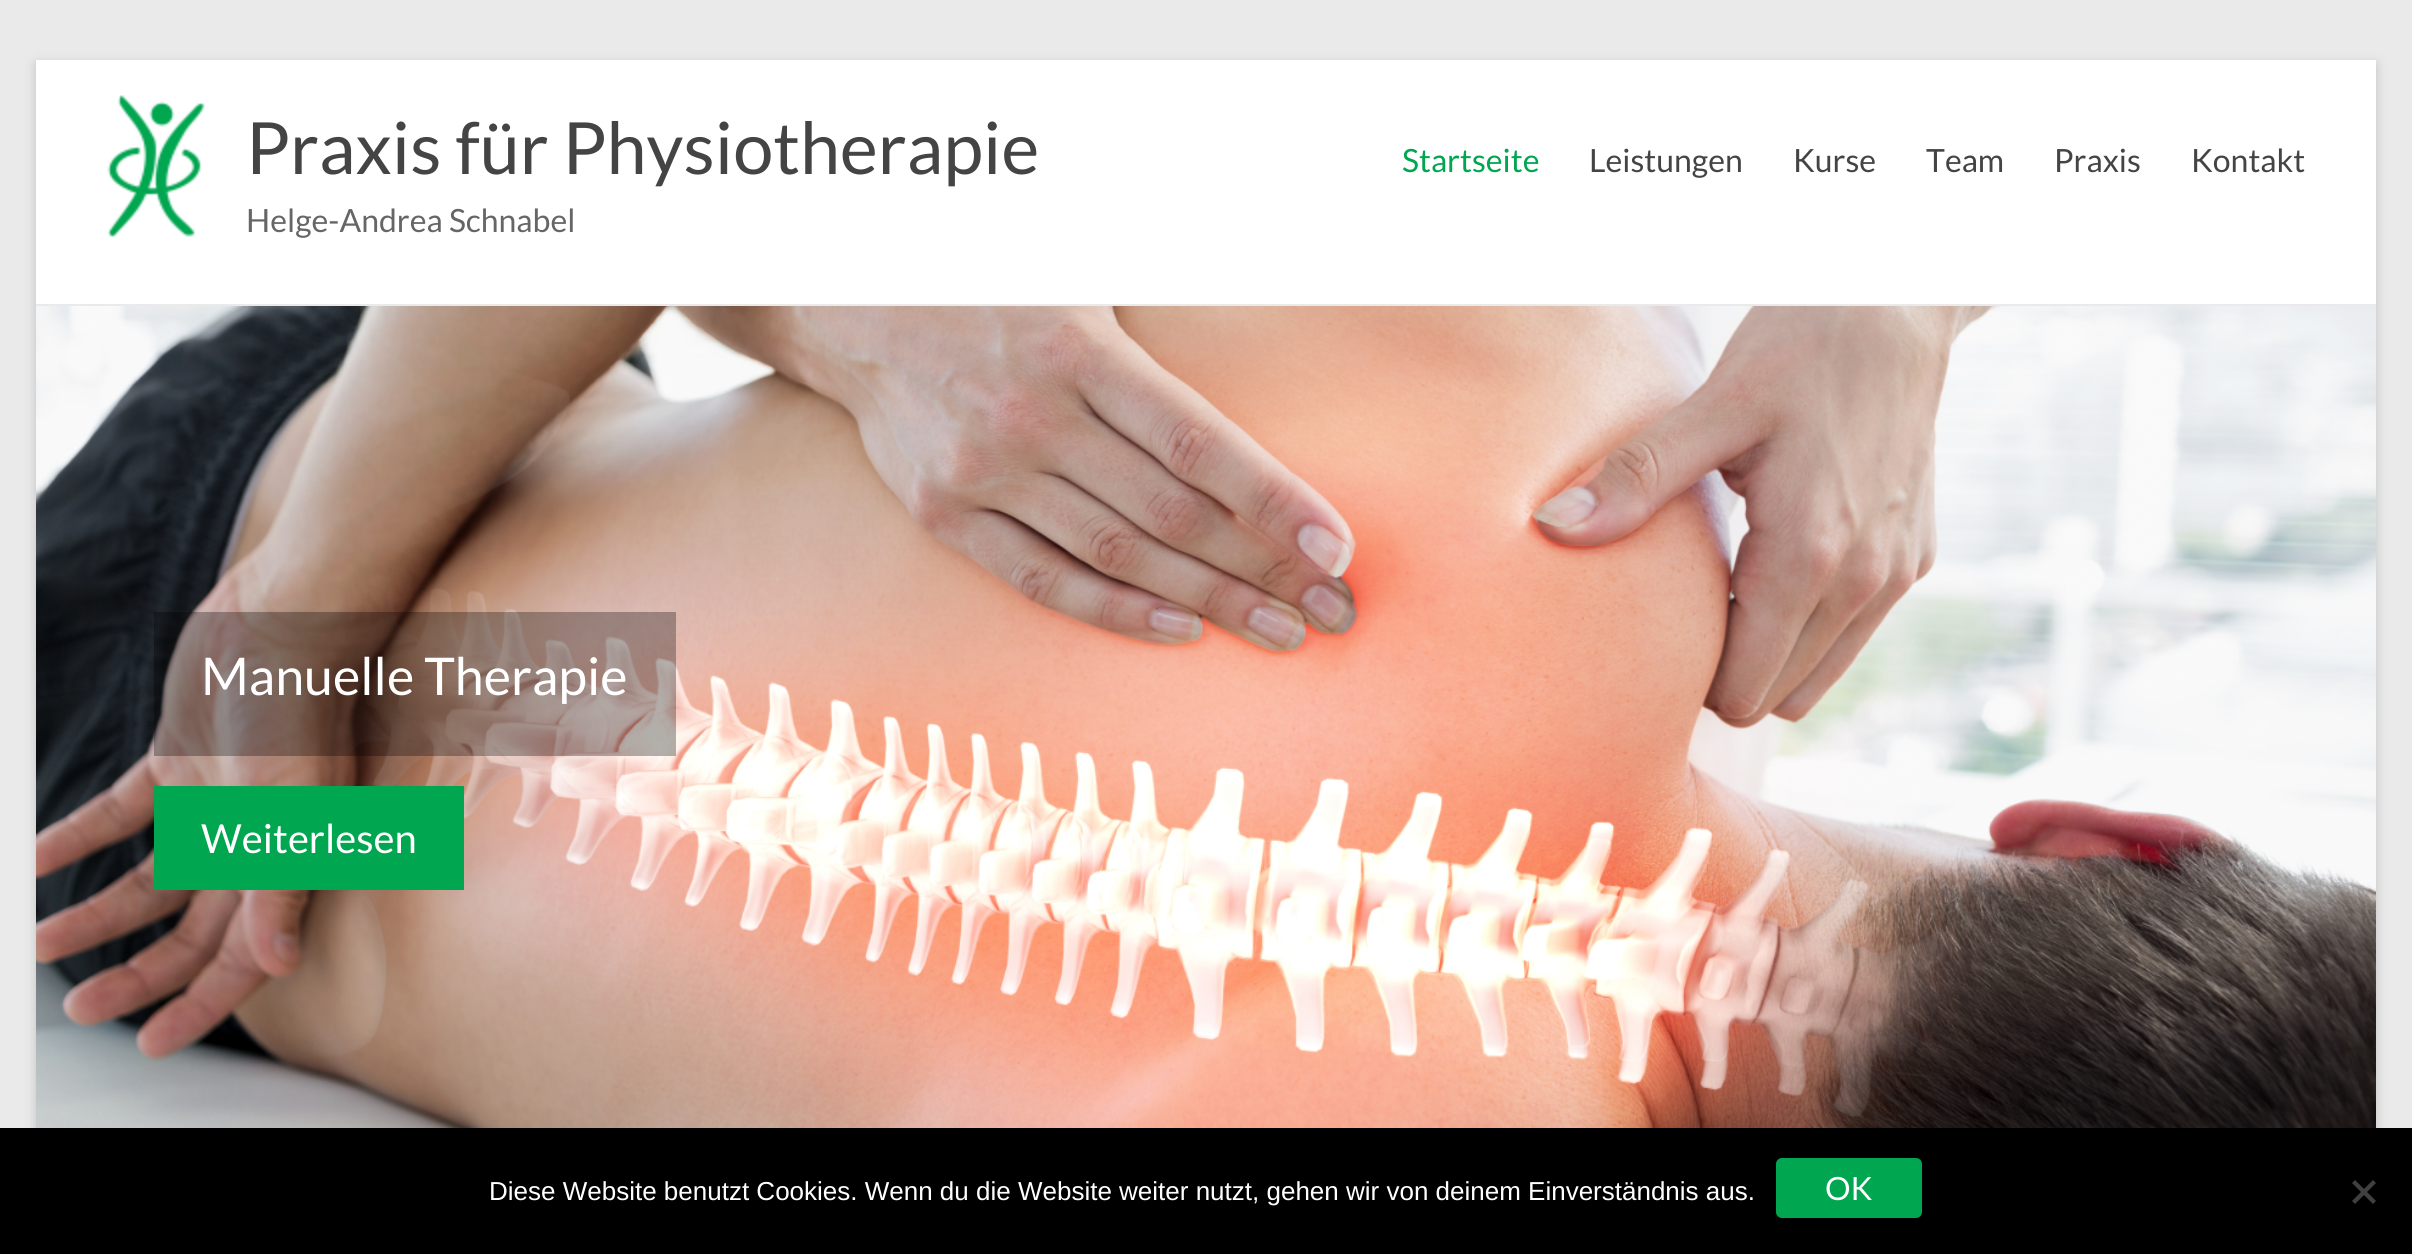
#include <cairo.h>
#include <math.h>
#include <stddef.h>

typedef struct { double x, y; const char *s; } line_t;

static void ink(cairo_t *ctx, unsigned color) {
    cairo_set_source_rgb(ctx, (color >> 16) / 255.0, (color >> 8 & 255) / 255.0, (color & 255) / 255.0);
}

static void round_path(cairo_t *ctx, double x, double y, double w, double h, double r) {
    cairo_new_sub_path(ctx);
    cairo_arc(ctx, x + w - r, y + h - r, r, 0, M_PI / 2);
    cairo_arc(ctx, x + r, y + h - r, r, M_PI / 2, M_PI);
    cairo_arc(ctx, x + r, y + r, r, M_PI, 1.5 * M_PI);
    cairo_arc(ctx, x + w - r, y + r, r, 1.5 * M_PI, 2 * M_PI);
    cairo_close_path(ctx);
}

static void blur_box(cairo_t *ctx, double x, double y, double w, double h, double r, double blur, double alpha) {
    cairo_push_group_with_content(ctx, CAIRO_CONTENT_ALPHA);
    cairo_set_operator(ctx, CAIRO_OPERATOR_SOURCE);
    for (int i = 15; i >= -15 && fmin(w, h) + blur * i / 3 > 0; i -= 2) {
        double e = blur * i / 6;
        cairo_set_source_rgba(ctx, 0, 0, 0, alpha * erfc((i - 1) / 8.5) / 2);
        round_path(ctx, x - e, y - e, w + 2 * e, h + 2 * e, fmax(0, fmin(r + e + blur * .6, fmin(w, h) / 2 + e)));
        cairo_fill(ctx);
    }
    cairo_pattern_t *soft = cairo_pop_group(ctx);
    cairo_mask(ctx, soft);
    cairo_pattern_destroy(soft);
}

static void paste(cairo_t *ctx, const char *path, double x, double y, double w, double h) {
    cairo_surface_t *image = cairo_image_surface_create_from_png(path);
    cairo_save(ctx);
    cairo_set_source_surface(ctx, image, x, y);
    cairo_rectangle(ctx, x, y, w, h);
    cairo_fill(ctx);
    cairo_restore(ctx);
    cairo_surface_destroy(image);
}

int main(void) {
    cairo_surface_t *surface = cairo_image_surface_create(CAIRO_FORMAT_RGB24, 2412, 1254);
    cairo_t *ctx = cairo_create(surface);
    cairo_font_options_t *options = cairo_font_options_create();
    cairo_font_options_set_hint_metrics(options, CAIRO_HINT_METRICS_OFF);
    cairo_font_options_set_hint_style(options, CAIRO_HINT_STYLE_NONE);
    cairo_set_font_options(ctx, options);
    cairo_set_miter_limit(ctx, 4);
    ink(ctx, 0xEAEAEA);
    cairo_paint(ctx);
    ink(ctx, 0x646464);
    blur_box(ctx, 36, 64, 2340, 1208, 0, 6, 0.3);
    ink(ctx, 0xFFFFFF);
    cairo_rectangle(ctx, 36, 60, 2340, 244);
    cairo_fill(ctx);
    ink(ctx, 0xEAEAEA);
    cairo_rectangle(ctx, 36, 304, 2340, 2);
    cairo_fill(ctx);
    paste(ctx, "media/1.png", 107, 95, 98, 142);
    cairo_select_font_face(ctx, "Lato", CAIRO_FONT_SLANT_NORMAL, CAIRO_FONT_WEIGHT_NORMAL);
    cairo_set_font_size(ctx, 72);
    ink(ctx, 0x444444);
    cairo_move_to(ctx, 246, 174);
    cairo_show_text(ctx, "Praxis für Physiotherapie");
    cairo_set_font_size(ctx, 32);
    ink(ctx, 0x666666);
    cairo_move_to(ctx, 246, 232);
    cairo_show_text(ctx, "Helge-Andrea Schnabel");
    ink(ctx, 0x00A650);
    cairo_move_to(ctx, 1402, 172);
    cairo_show_text(ctx, "Startseite");
    ink(ctx, 0x444444);
    {
        static const line_t items[] = {
            {1589, 172, "Leistungen"},
            {1793, 172, "Kurse"},
            {1926, 172, "Team"},
            {2054, 172, "Praxis"},
            {2191, 172, "Kontakt"},
        };
        for (size_t i = 0; i < sizeof items / sizeof *items; i++) {
            cairo_move_to(ctx, items[i].x, items[i].y);
            cairo_show_text(ctx, items[i].s);
        }
    }
    paste(ctx, "media/2.png", 36, 306, 2340, 822);
    cairo_set_source_rgba(ctx, 0, 0, 0, 0.3);
    cairo_rectangle(ctx, 154, 612, 522, 144);
    cairo_fill(ctx);
    cairo_set_font_size(ctx, 52);
    ink(ctx, 0xFFFFFF);
    cairo_move_to(ctx, 201, 695);
    cairo_show_text(ctx, "Manuelle Therapie");
    ink(ctx, 0x00A650);
    cairo_rectangle(ctx, 154, 786, 310, 104);
    cairo_fill(ctx);
    cairo_set_font_size(ctx, 40);
    ink(ctx, 0xFFFFFF);
    cairo_move_to(ctx, 201, 853);
    cairo_show_text(ctx, "Weiterlesen");
    ink(ctx, 0x000000);
    cairo_rectangle(ctx, 0, 1128, 2412, 126);
    cairo_fill(ctx);
    cairo_select_font_face(ctx, "Liberation Sans", CAIRO_FONT_SLANT_NORMAL, CAIRO_FONT_WEIGHT_NORMAL);
    cairo_set_font_size(ctx, 26);
    ink(ctx, 0xFFFFFF);
    cairo_move_to(ctx, 489, 1200);
    cairo_show_text(ctx, "Diese Website benutzt Cookies. Wenn du die Website weiter nutzt, gehen wir von deinem Einverständnis aus.");
    ink(ctx, 0x00A650);
    round_path(ctx, 1776, 1158, 146, 60, 6);
    cairo_fill(ctx);
    cairo_select_font_face(ctx, "Lato", CAIRO_FONT_SLANT_NORMAL, CAIRO_FONT_WEIGHT_NORMAL);
    cairo_set_font_size(ctx, 32);
    ink(ctx, 0xFFFFFF);
    cairo_move_to(ctx, 1825, 1200);
    cairo_show_text(ctx, "OK");
    ink(ctx, 0x404040);
    cairo_new_path(ctx);
    cairo_move_to(ctx, 2373, 1180);
    cairo_line_to(ctx, 2376, 1183);
    cairo_line_to(ctx, 2355, 1204);
    cairo_line_to(ctx, 2352, 1201);
    cairo_close_path(ctx);
    cairo_fill(ctx);
    cairo_new_path(ctx);
    cairo_move_to(ctx, 2352, 1183);
    cairo_line_to(ctx, 2355, 1180);
    cairo_line_to(ctx, 2376, 1201);
    cairo_line_to(ctx, 2373, 1204);
    cairo_close_path(ctx);
    cairo_fill(ctx);
    cairo_surface_write_to_png(surface, "image.png");
    cairo_font_options_destroy(options);
    cairo_destroy(ctx);
    cairo_surface_destroy(surface);
    return 0;
}
